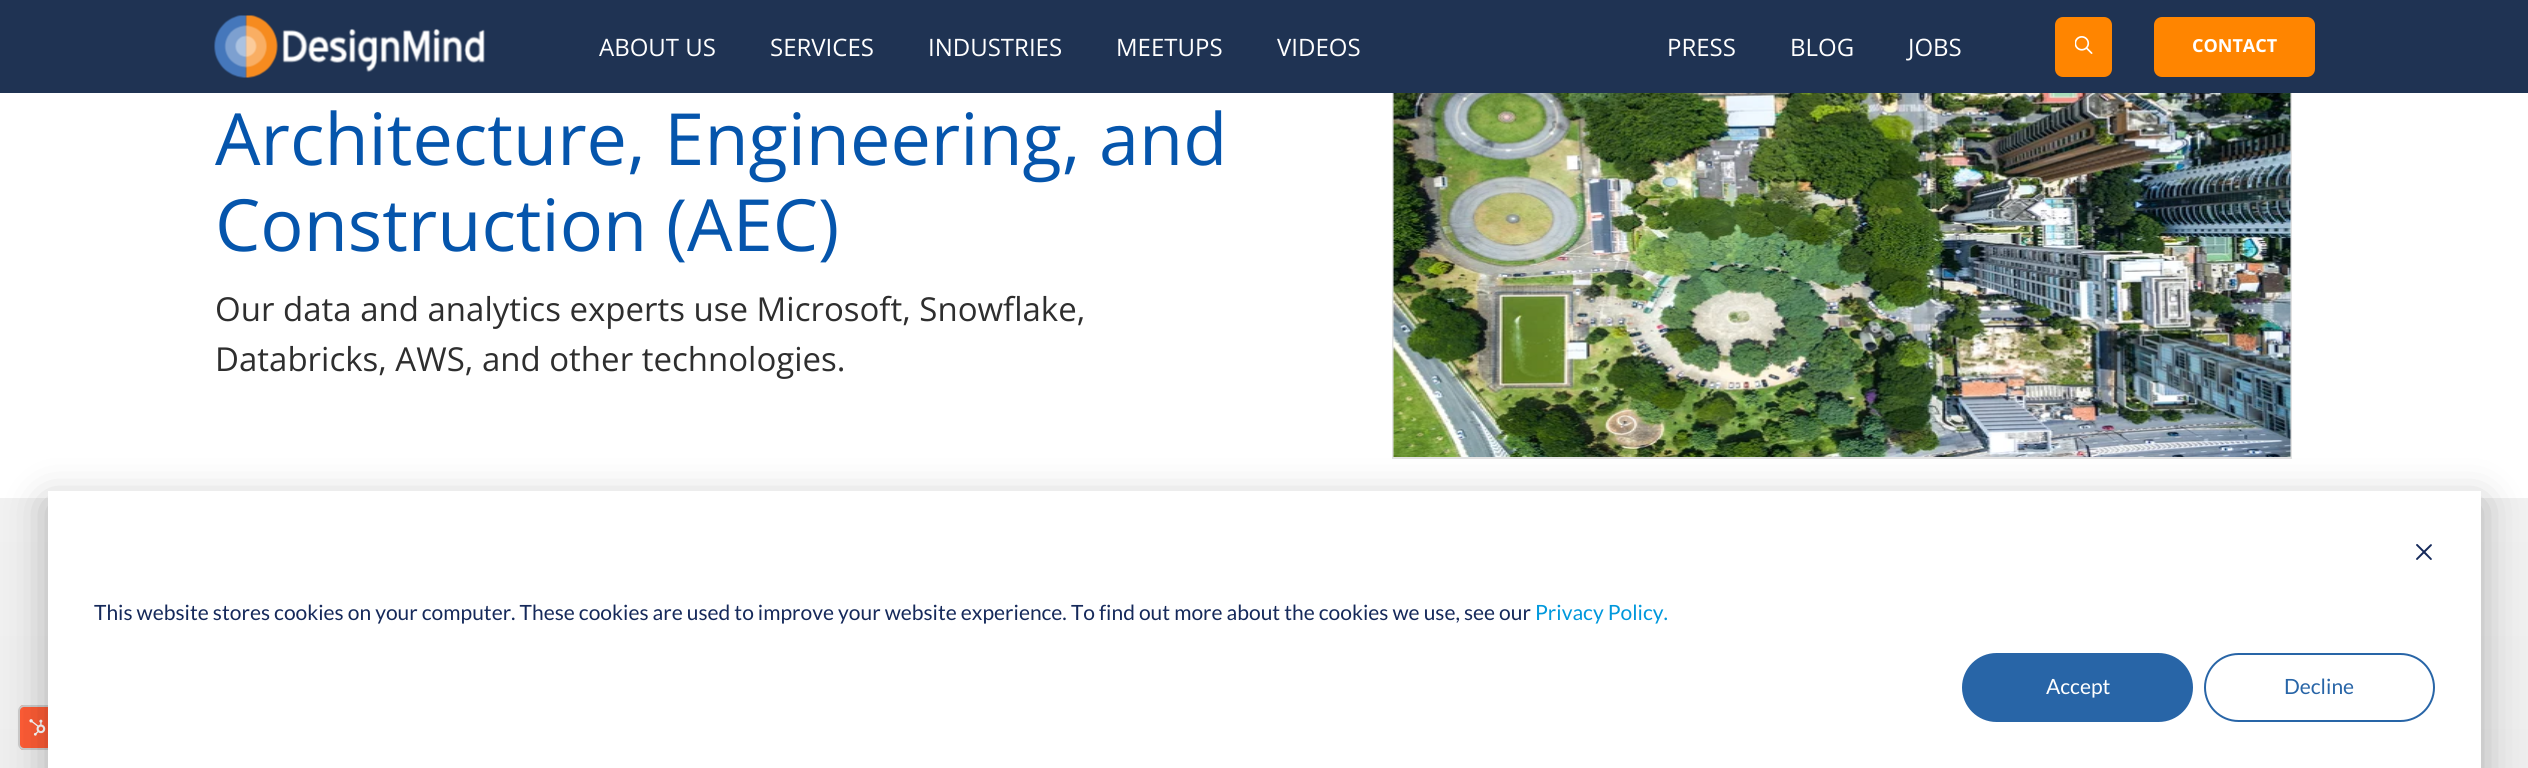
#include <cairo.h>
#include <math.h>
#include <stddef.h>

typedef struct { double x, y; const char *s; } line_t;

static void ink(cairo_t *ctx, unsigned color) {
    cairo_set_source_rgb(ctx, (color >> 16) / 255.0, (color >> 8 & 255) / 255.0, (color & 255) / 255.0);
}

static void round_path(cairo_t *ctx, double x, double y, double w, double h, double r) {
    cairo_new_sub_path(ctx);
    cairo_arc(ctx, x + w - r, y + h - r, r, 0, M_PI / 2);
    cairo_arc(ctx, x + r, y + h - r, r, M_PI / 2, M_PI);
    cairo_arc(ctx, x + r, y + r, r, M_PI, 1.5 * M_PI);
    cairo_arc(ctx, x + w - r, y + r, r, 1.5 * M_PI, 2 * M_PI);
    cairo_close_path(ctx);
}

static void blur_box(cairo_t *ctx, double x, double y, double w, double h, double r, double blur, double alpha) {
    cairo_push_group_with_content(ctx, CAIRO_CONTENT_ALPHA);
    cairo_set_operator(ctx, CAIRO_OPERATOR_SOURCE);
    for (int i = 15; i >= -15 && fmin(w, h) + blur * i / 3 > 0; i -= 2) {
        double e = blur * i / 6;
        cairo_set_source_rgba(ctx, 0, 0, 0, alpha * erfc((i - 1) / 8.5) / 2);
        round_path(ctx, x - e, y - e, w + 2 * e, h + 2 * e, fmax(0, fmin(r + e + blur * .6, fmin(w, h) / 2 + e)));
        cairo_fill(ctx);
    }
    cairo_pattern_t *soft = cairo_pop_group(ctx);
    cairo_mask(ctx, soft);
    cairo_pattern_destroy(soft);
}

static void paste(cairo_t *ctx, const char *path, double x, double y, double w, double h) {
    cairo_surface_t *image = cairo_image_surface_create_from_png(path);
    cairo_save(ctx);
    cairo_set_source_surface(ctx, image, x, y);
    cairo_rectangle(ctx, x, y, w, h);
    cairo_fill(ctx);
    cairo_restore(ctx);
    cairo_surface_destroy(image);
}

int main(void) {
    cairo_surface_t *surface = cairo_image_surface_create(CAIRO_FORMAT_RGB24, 2528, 768);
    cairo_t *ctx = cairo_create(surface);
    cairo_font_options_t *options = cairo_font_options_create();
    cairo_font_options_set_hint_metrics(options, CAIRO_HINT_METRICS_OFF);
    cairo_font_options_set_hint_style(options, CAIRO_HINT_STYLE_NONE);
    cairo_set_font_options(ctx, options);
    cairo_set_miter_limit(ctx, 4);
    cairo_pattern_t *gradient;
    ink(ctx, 0xFFFFFF);
    cairo_paint(ctx);
    cairo_rectangle(ctx, 1393, 10, 898, 448);
    ink(ctx, 0xE2E2E2);
    cairo_stroke(ctx);
    ink(ctx, 0x1F3353);
    cairo_rectangle(ctx, 0, 0, 2528, 93);
    cairo_fill(ctx);
    paste(ctx, "media/1.png", 214, 15, 271, 63);
    cairo_select_font_face(ctx, "Open Sans", CAIRO_FONT_SLANT_NORMAL, CAIRO_FONT_WEIGHT_NORMAL);
    cairo_set_font_size(ctx, 24);
    ink(ctx, 0xFFFFFF);
    {
        static const line_t items[] = {
            {599, 56, "ABOUT US"},
            {770, 56, "SERVICES"},
            {928, 56, "INDUSTRIES"},
            {1116, 56, "MEETUPS"},
            {1277, 56, "VIDEOS"},
            {1667, 56, "PRESS"},
            {1790, 56, "BLOG"},
            {1908, 56, "JOBS"},
        };
        for (size_t i = 0; i < sizeof items / sizeof *items; i++) {
            cairo_move_to(ctx, items[i].x, items[i].y);
            cairo_show_text(ctx, items[i].s);
        }
    }
    ink(ctx, 0xFF8500);
    round_path(ctx, 2056, 18, 55, 58, 7);
    cairo_fill_preserve(ctx);
    cairo_stroke(ctx);
    paste(ctx, "media/2.png", 2075, 36, 18, 18);
    round_path(ctx, 2155, 18, 159, 58, 7);
    cairo_fill_preserve(ctx);
    cairo_stroke(ctx);
    cairo_select_font_face(ctx, "Open Sans", CAIRO_FONT_SLANT_NORMAL, CAIRO_FONT_WEIGHT_BOLD);
    cairo_set_font_size(ctx, 18);
    ink(ctx, 0xFFFFFF);
    cairo_move_to(ctx, 2192, 52);
    cairo_show_text(ctx, "CONTACT");
    cairo_select_font_face(ctx, "Open Sans", CAIRO_FONT_SLANT_NORMAL, CAIRO_FONT_WEIGHT_NORMAL);
    cairo_set_font_size(ctx, 72);
    ink(ctx, 0x0555AC);
    cairo_move_to(ctx, 215, 165);
    cairo_show_text(ctx, "Architecture, Engineering, and");
    cairo_move_to(ctx, 215, 251);
    cairo_show_text(ctx, "Construction (AEC)");
    cairo_set_font_size(ctx, 33);
    ink(ctx, 0x2E2E2E);
    cairo_move_to(ctx, 215, 321);
    cairo_show_text(ctx, "Our data and analytics experts use Microsoft, Snowflake,");
    cairo_move_to(ctx, 215, 371);
    cairo_show_text(ctx, "Databricks, AWS, and other technologies.");
    paste(ctx, "media/3.png", 1393, 93, 898, 364);
    gradient = cairo_pattern_create_linear(1265, 498, 1265, 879);
    cairo_pattern_add_color_stop_rgba(gradient, 0, 0.945, 0.945, 0.945, 1);
    cairo_pattern_add_color_stop_rgba(gradient, 1, 0.929, 0.929, 0.929, 1);
    cairo_set_source(ctx, gradient);
    cairo_pattern_destroy(gradient);
    cairo_rectangle(ctx, 0, 498, 2528, 270);
    cairo_fill(ctx);
    cairo_save(ctx);
    round_path(ctx, 18, 705, 198, 45, 6);
    cairo_clip(ctx);
    ink(ctx, 0xFF5C35);
    cairo_rectangle(ctx, 20, 705, 28, 45);
    cairo_fill(ctx);
    cairo_restore(ctx);
    round_path(ctx, 19, 706, 196, 43, 5);
    ink(ctx, 0xCCCCCC);
    cairo_stroke(ctx);
    paste(ctx, "media/5.png", 29, 719, 17, 17);
    ink(ctx, 0x000000);
    blur_box(ctx, 48, 503, 2433, 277, 0, 21, 0.28);
    ink(ctx, 0xFFFFFF);
    cairo_rectangle(ctx, 48, 491, 2433, 277);
    cairo_fill(ctx);
    paste(ctx, "media/4.png", 2416, 544, 16, 16);
    cairo_select_font_face(ctx, "Lato", CAIRO_FONT_SLANT_NORMAL, CAIRO_FONT_WEIGHT_NORMAL);
    cairo_set_font_size(ctx, 21);
    ink(ctx, 0x15295A);
    cairo_move_to(ctx, 94, 620);
    cairo_show_text(ctx, "This website stores cookies on your computer. These cookies are used to improve your website experience. To find out more about the cookies we use, see our");
    ink(ctx, 0x0098DC);
    cairo_move_to(ctx, 1535, 620);
    cairo_show_text(ctx, "Privacy Policy.");
    ink(ctx, 0x2865A7);
    round_path(ctx, 1963, 654, 229, 67, 33.5);
    cairo_fill_preserve(ctx);
    cairo_stroke(ctx);
    ink(ctx, 0xFFFFFF);
    cairo_move_to(ctx, 2046, 694);
    cairo_show_text(ctx, "Accept");
    round_path(ctx, 2205, 654, 229, 67, 33.5);
    ink(ctx, 0x2865A7);
    cairo_stroke(ctx);
    cairo_move_to(ctx, 2284, 694);
    cairo_show_text(ctx, "Decline");
    cairo_surface_write_to_png(surface, "image.png");
    cairo_font_options_destroy(options);
    cairo_destroy(ctx);
    cairo_surface_destroy(surface);
    return 0;
}
